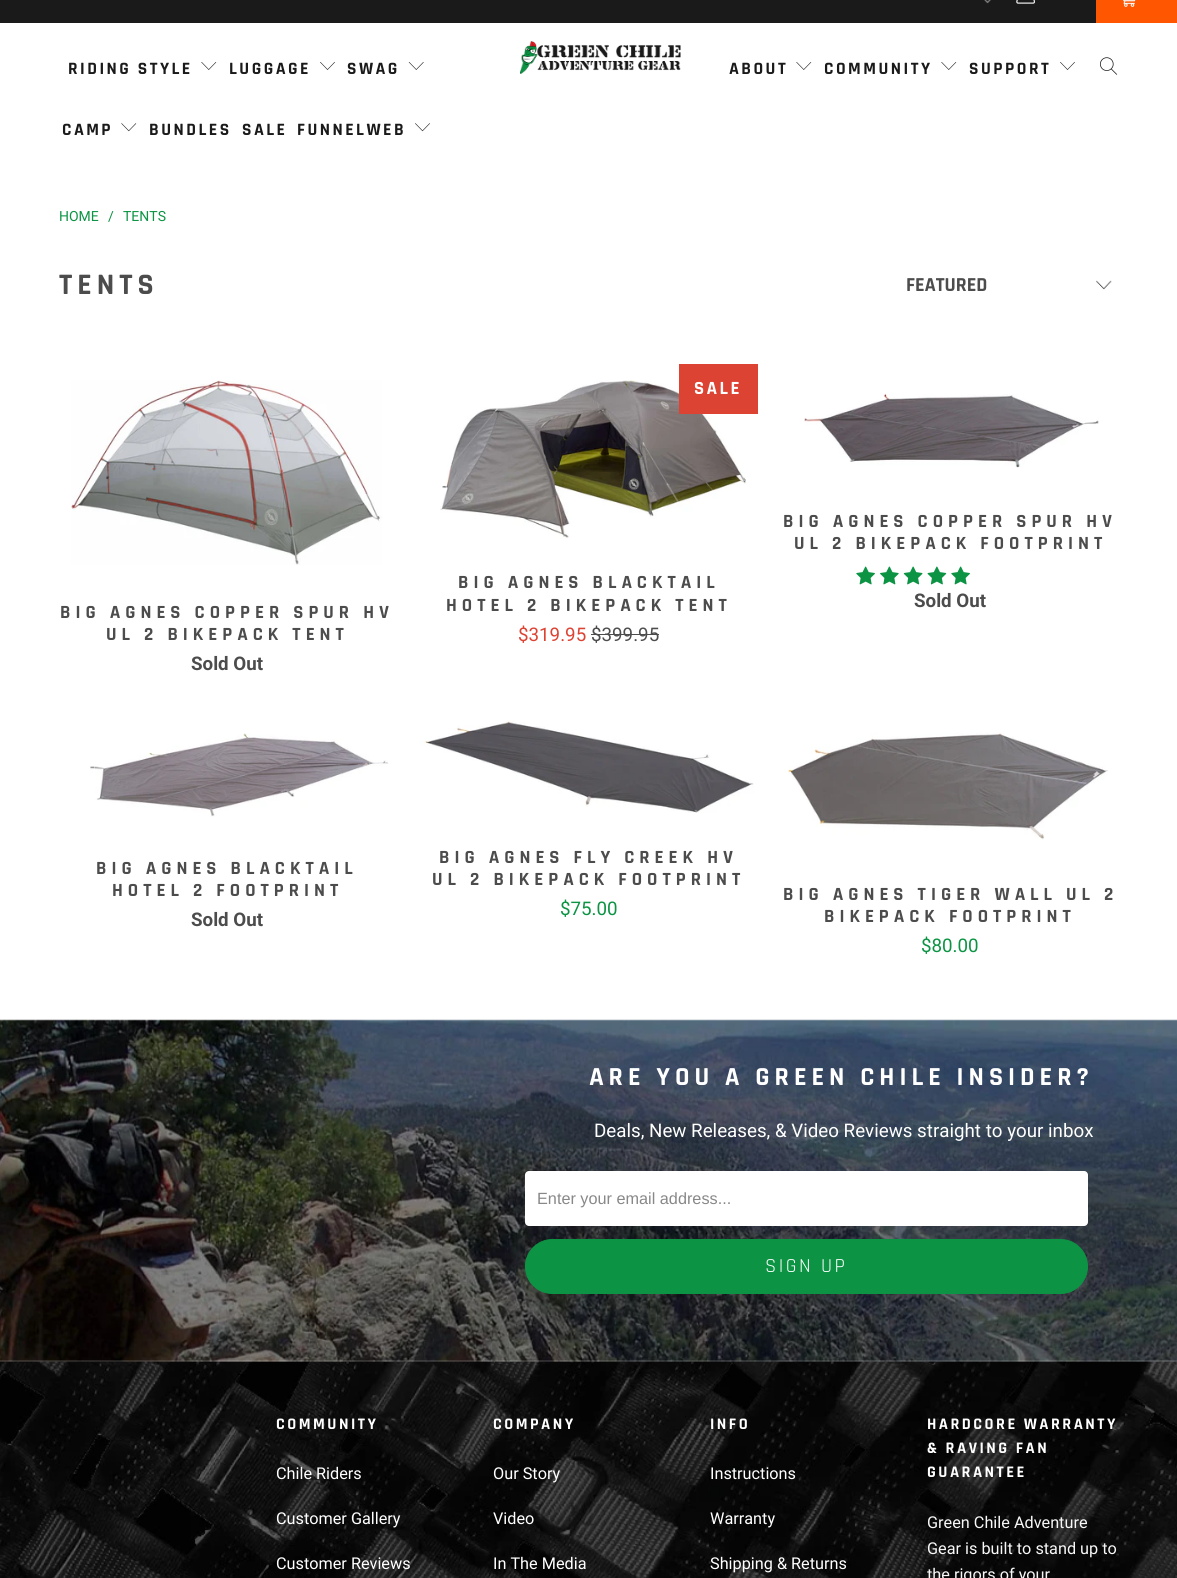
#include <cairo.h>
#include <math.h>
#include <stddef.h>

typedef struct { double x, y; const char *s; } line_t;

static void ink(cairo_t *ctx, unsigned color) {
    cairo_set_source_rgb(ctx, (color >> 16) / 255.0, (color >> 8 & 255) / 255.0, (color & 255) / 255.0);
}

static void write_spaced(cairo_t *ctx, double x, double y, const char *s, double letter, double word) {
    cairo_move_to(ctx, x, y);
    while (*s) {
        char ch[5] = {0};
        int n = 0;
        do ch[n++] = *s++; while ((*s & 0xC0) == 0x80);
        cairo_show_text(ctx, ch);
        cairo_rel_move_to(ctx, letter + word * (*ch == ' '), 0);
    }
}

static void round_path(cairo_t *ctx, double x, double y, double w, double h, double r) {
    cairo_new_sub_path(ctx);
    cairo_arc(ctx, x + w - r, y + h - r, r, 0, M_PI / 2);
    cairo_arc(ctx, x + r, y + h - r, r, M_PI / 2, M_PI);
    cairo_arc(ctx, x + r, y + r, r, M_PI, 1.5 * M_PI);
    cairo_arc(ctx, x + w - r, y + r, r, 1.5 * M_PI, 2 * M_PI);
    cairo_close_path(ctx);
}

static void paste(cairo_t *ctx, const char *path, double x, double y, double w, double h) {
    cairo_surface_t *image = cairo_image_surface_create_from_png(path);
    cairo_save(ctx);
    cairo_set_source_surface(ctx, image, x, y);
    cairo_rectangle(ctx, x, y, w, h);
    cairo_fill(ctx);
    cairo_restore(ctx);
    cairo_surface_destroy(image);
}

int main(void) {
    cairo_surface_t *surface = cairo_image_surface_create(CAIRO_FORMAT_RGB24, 1177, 1578);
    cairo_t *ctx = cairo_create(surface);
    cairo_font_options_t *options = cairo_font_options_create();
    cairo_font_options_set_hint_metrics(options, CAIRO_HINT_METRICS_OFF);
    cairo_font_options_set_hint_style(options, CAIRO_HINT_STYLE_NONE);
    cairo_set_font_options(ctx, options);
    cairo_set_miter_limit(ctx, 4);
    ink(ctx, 0xFFFFFF);
    cairo_paint(ctx);
    ink(ctx, 0x1A1A1A);
    cairo_rectangle(ctx, 0, 0, 1096, 23);
    cairo_fill(ctx);
    paste(ctx, "media/1.png", 984, 0, 7, 4);
    paste(ctx, "media/2.png", 1016, 0, 19, 4);
    ink(ctx, 0xFE5601);
    cairo_rectangle(ctx, 1096, 0, 81, 23);
    cairo_fill(ctx);
    paste(ctx, "media/3.png", 1123, 0, 13, 7);
    paste(ctx, "media/4.png", 520, 41, 161, 33);
    cairo_select_font_face(ctx, "Rajdhani", CAIRO_FONT_SLANT_NORMAL, CAIRO_FONT_WEIGHT_BOLD);
    cairo_set_font_size(ctx, 17.5);
    ink(ctx, 0x1A1A1A);
    write_spaced(ctx, 68, 74, "RIDING STYLE", 2.5, 0);
    paste(ctx, "media/5.png", 201, 62, 16, 8);
    write_spaced(ctx, 229, 74, "LUGGAGE", 2.5, 0);
    paste(ctx, "media/6.png", 320, 62, 15, 8);
    write_spaced(ctx, 347, 74, "SWAG", 2.5, 0);
    paste(ctx, "media/7.png", 408, 62, 16, 8);
    write_spaced(ctx, 62, 135, "CAMP", 2.5, 0);
    paste(ctx, "media/8.png", 121, 123, 16, 9);
    {
        static const line_t items[] = {
            {149, 135, "BUNDLES"},
            {242, 135, "SALE"},
            {297, 135, "FUNNELWEB"},
        };
        for (size_t i = 0; i < sizeof items / sizeof *items; i++) {
            write_spaced(ctx, items[i].x, items[i].y, items[i].s, 2.5, 0);
        }
    }
    paste(ctx, "media/9.png", 415, 123, 15, 9);
    write_spaced(ctx, 729, 74, "ABOUT", 2.5, 0);
    paste(ctx, "media/5.png", 796, 62, 16, 8);
    write_spaced(ctx, 824, 74, "COMMUNITY", 2.5, 0);
    paste(ctx, "media/5.png", 941, 62, 16, 8);
    write_spaced(ctx, 969, 74, "SUPPORT", 2.5, 0);
    paste(ctx, "media/6.png", 1060, 62, 15, 8);
    paste(ctx, "media/10.png", 1100, 57, 18, 18);
    cairo_select_font_face(ctx, "Roboto", CAIRO_FONT_SLANT_NORMAL, CAIRO_FONT_WEIGHT_NORMAL);
    cairo_set_font_size(ctx, 14);
    ink(ctx, 0x0C9444);
    {
        static const line_t items[] = {
            {59, 221, "HOME"},
            {108, 221, "/"},
            {123, 221, "TENTS"},
        };
        for (size_t i = 0; i < sizeof items / sizeof *items; i++) {
            cairo_move_to(ctx, items[i].x, items[i].y);
            cairo_show_text(ctx, items[i].s);
        }
    }
    cairo_select_font_face(ctx, "Rajdhani", CAIRO_FONT_SLANT_NORMAL, CAIRO_FONT_WEIGHT_BOLD);
    cairo_set_font_size(ctx, 30);
    ink(ctx, 0x4C4C4C);
    write_spaced(ctx, 59, 294, "TENTS", 5, 0);
    paste(ctx, "media/11.png", 1096, 280, 16, 10);
    cairo_set_font_size(ctx, 20);
    cairo_move_to(ctx, 906, 291);
    cairo_show_text(ctx, "FEATURED");
    paste(ctx, "media/12.png", 440, 380, 306, 159);
    ink(ctx, 0xDD4333);
    cairo_rectangle(ctx, 679, 364, 79, 50);
    cairo_fill(ctx);
    cairo_set_font_size(ctx, 18.75);
    ink(ctx, 0xFFFFFF);
    write_spaced(ctx, 694, 394, "SALE", 2.5, 0);
    ink(ctx, 0x4C4C4C);
    write_spaced(ctx, 458, 588, "BIG AGNES BLACKTAIL", 5, 0);
    write_spaced(ctx, 446, 611, "HOTEL 2 BIKEPACK TENT", 5, 0);
    cairo_select_font_face(ctx, "Roboto", CAIRO_FONT_SLANT_NORMAL, CAIRO_FONT_WEIGHT_NORMAL);
    ink(ctx, 0xDD4333);
    cairo_move_to(ctx, 518, 641);
    cairo_show_text(ctx, "$319.95");
    ink(ctx, 0x4C4C4C);
    cairo_move_to(ctx, 591, 641);
    cairo_show_text(ctx, "$399.95");
    cairo_rectangle(ctx, 591, 634, 68, 1);
    cairo_fill(ctx);
    paste(ctx, "media/13.png", 804, 393, 295, 75);
    cairo_select_font_face(ctx, "Rajdhani", CAIRO_FONT_SLANT_NORMAL, CAIRO_FONT_WEIGHT_BOLD);
    write_spaced(ctx, 783, 527, "BIG AGNES COPPER SPUR HV", 5, 0);
    write_spaced(ctx, 794, 549, "UL 2 BIKEPACK FOOTPRINT", 5, 0);
    paste(ctx, "media/14.png", 856, 566, 19, 19);
    paste(ctx, "media/15.png", 880, 566, 19, 19);
    paste(ctx, "media/16.png", 903, 566, 20, 19);
    paste(ctx, "media/17.png", 927, 566, 20, 19);
    paste(ctx, "media/14.png", 951, 566, 19, 19);
    cairo_select_font_face(ctx, "Roboto", CAIRO_FONT_SLANT_NORMAL, CAIRO_FONT_WEIGHT_BOLD);
    cairo_move_to(ctx, 914, 607);
    cairo_show_text(ctx, "Sold Out");
    paste(ctx, "media/18.png", 71, 380, 311, 185);
    cairo_select_font_face(ctx, "Rajdhani", CAIRO_FONT_SLANT_NORMAL, CAIRO_FONT_WEIGHT_BOLD);
    write_spaced(ctx, 60, 618, "BIG AGNES COPPER SPUR HV", 5, 0);
    write_spaced(ctx, 106, 640, "UL 2 BIKEPACK TENT", 5, 0);
    cairo_select_font_face(ctx, "Roboto", CAIRO_FONT_SLANT_NORMAL, CAIRO_FONT_WEIGHT_BOLD);
    cairo_move_to(ctx, 191, 670);
    cairo_show_text(ctx, "Sold Out");
    paste(ctx, "media/19.png", 90, 733, 299, 84);
    cairo_select_font_face(ctx, "Rajdhani", CAIRO_FONT_SLANT_NORMAL, CAIRO_FONT_WEIGHT_BOLD);
    write_spaced(ctx, 96, 874, "BIG AGNES BLACKTAIL", 5, 0);
    write_spaced(ctx, 112, 896, "HOTEL 2 FOOTPRINT", 5, 0);
    cairo_select_font_face(ctx, "Roboto", CAIRO_FONT_SLANT_NORMAL, CAIRO_FONT_WEIGHT_BOLD);
    cairo_move_to(ctx, 191, 926);
    cairo_show_text(ctx, "Sold Out");
    paste(ctx, "media/20.png", 420, 720, 334, 93);
    cairo_select_font_face(ctx, "Rajdhani", CAIRO_FONT_SLANT_NORMAL, CAIRO_FONT_WEIGHT_BOLD);
    write_spaced(ctx, 439, 863, "BIG AGNES FLY CREEK HV", 5, 0);
    write_spaced(ctx, 432, 885, "UL 2 BIKEPACK FOOTPRINT", 5, 0);
    cairo_select_font_face(ctx, "Roboto", CAIRO_FONT_SLANT_NORMAL, CAIRO_FONT_WEIGHT_NORMAL);
    ink(ctx, 0x0C9444);
    cairo_move_to(ctx, 560, 915);
    cairo_show_text(ctx, "$75.00");
    paste(ctx, "media/21.png", 788, 732, 320, 108);
    cairo_select_font_face(ctx, "Rajdhani", CAIRO_FONT_SLANT_NORMAL, CAIRO_FONT_WEIGHT_BOLD);
    ink(ctx, 0x4C4C4C);
    write_spaced(ctx, 783, 900, "BIG AGNES TIGER WALL UL 2", 5, 0);
    write_spaced(ctx, 824, 922, "BIKEPACK FOOTPRINT", 5, 0);
    cairo_select_font_face(ctx, "Roboto", CAIRO_FONT_SLANT_NORMAL, CAIRO_FONT_WEIGHT_NORMAL);
    ink(ctx, 0x0C9444);
    cairo_move_to(ctx, 921, 952);
    cairo_show_text(ctx, "$80.00");
    paste(ctx, "media/23.png", 0, 1361, 1177, 217);
    paste(ctx, "media/22.png", 0, 1019, 1177, 343);
    cairo_select_font_face(ctx, "Rajdhani", CAIRO_FONT_SLANT_NORMAL, CAIRO_FONT_WEIGHT_BOLD);
    cairo_set_font_size(ctx, 26.25);
    ink(ctx, 0xFFFFFF);
    write_spaced(ctx, 589, 1085, "ARE YOU A GREEN CHILE INSIDER?", 5, 0);
    cairo_select_font_face(ctx, "Roboto", CAIRO_FONT_SLANT_NORMAL, CAIRO_FONT_WEIGHT_NORMAL);
    cairo_set_font_size(ctx, 18.75);
    cairo_move_to(ctx, 594, 1137);
    cairo_show_text(ctx, "Deals, New Releases, & Video Reviews straight to your inbox");
    round_path(ctx, 525, 1171, 563, 55, 4);
    cairo_fill(ctx);
    cairo_select_font_face(ctx, "Liberation Sans", CAIRO_FONT_SLANT_NORMAL, CAIRO_FONT_WEIGHT_NORMAL);
    cairo_set_font_size(ctx, 16.25);
    ink(ctx, 0x888888);
    cairo_move_to(ctx, 537, 1204);
    cairo_show_text(ctx, "Enter your email address...");
    ink(ctx, 0x0C9444);
    round_path(ctx, 525.5, 1239.5, 562, 54, 27);
    cairo_fill_preserve(ctx);
    cairo_set_line_width(ctx, 1);
    cairo_stroke(ctx);
    cairo_select_font_face(ctx, "Rajdhani", CAIRO_FONT_SLANT_NORMAL, CAIRO_FONT_WEIGHT_NORMAL);
    cairo_set_font_size(ctx, 20);
    ink(ctx, 0xFFFFFF);
    write_spaced(ctx, 765, 1272, "SIGN UP", 2.5, 0);
    cairo_select_font_face(ctx, "Rajdhani", CAIRO_FONT_SLANT_NORMAL, CAIRO_FONT_WEIGHT_BOLD);
    cairo_set_font_size(ctx, 16.25);
    write_spaced(ctx, 276, 1429, "COMMUNITY", 2.5, 0);
    cairo_select_font_face(ctx, "Roboto", CAIRO_FONT_SLANT_NORMAL, CAIRO_FONT_WEIGHT_NORMAL);
    {
        static const line_t items[] = {
            {276, 1479, "Chile Riders"},
            {276, 1524, "Customer Gallery"},
            {276, 1569, "Customer Reviews"},
        };
        for (size_t i = 0; i < sizeof items / sizeof *items; i++) {
            cairo_move_to(ctx, items[i].x, items[i].y);
            cairo_show_text(ctx, items[i].s);
        }
    }
    cairo_select_font_face(ctx, "Rajdhani", CAIRO_FONT_SLANT_NORMAL, CAIRO_FONT_WEIGHT_BOLD);
    write_spaced(ctx, 493, 1429, "COMPANY", 2.5, 0);
    cairo_select_font_face(ctx, "Roboto", CAIRO_FONT_SLANT_NORMAL, CAIRO_FONT_WEIGHT_NORMAL);
    {
        static const line_t items[] = {
            {493, 1479, "Our Story"},
            {493, 1524, "Video"},
            {493, 1569, "In The Media"},
        };
        for (size_t i = 0; i < sizeof items / sizeof *items; i++) {
            cairo_move_to(ctx, items[i].x, items[i].y);
            cairo_show_text(ctx, items[i].s);
        }
    }
    cairo_select_font_face(ctx, "Rajdhani", CAIRO_FONT_SLANT_NORMAL, CAIRO_FONT_WEIGHT_BOLD);
    write_spaced(ctx, 710, 1429, "INFO", 2.5, 0);
    cairo_select_font_face(ctx, "Roboto", CAIRO_FONT_SLANT_NORMAL, CAIRO_FONT_WEIGHT_NORMAL);
    {
        static const line_t items[] = {
            {710, 1479, "Instructions"},
            {710, 1524, "Warranty"},
            {710, 1569, "Shipping & Returns"},
        };
        for (size_t i = 0; i < sizeof items / sizeof *items; i++) {
            cairo_move_to(ctx, items[i].x, items[i].y);
            cairo_show_text(ctx, items[i].s);
        }
    }
    cairo_select_font_face(ctx, "Rajdhani", CAIRO_FONT_SLANT_NORMAL, CAIRO_FONT_WEIGHT_BOLD);
    {
        static const line_t items[] = {
            {927, 1429, "HARDCORE WARRANTY"},
            {927, 1453, "& RAVING FAN"},
            {927, 1477, "GUARANTEE"},
        };
        for (size_t i = 0; i < sizeof items / sizeof *items; i++) {
            write_spaced(ctx, items[i].x, items[i].y, items[i].s, 2.5, 0);
        }
    }
    cairo_select_font_face(ctx, "Roboto", CAIRO_FONT_SLANT_NORMAL, CAIRO_FONT_WEIGHT_NORMAL);
    ink(ctx, 0xF8F8F8);
    {
        static const line_t items[] = {
            {927, 1528, "Green Chile Adventure"},
            {927, 1554, "Gear is built to stand up to"},
            {927, 1580, "the rigors of your"},
        };
        for (size_t i = 0; i < sizeof items / sizeof *items; i++) {
            cairo_move_to(ctx, items[i].x, items[i].y);
            cairo_show_text(ctx, items[i].s);
        }
    }
    cairo_surface_write_to_png(surface, "image.png");
    cairo_font_options_destroy(options);
    cairo_destroy(ctx);
    cairo_surface_destroy(surface);
    return 0;
}
